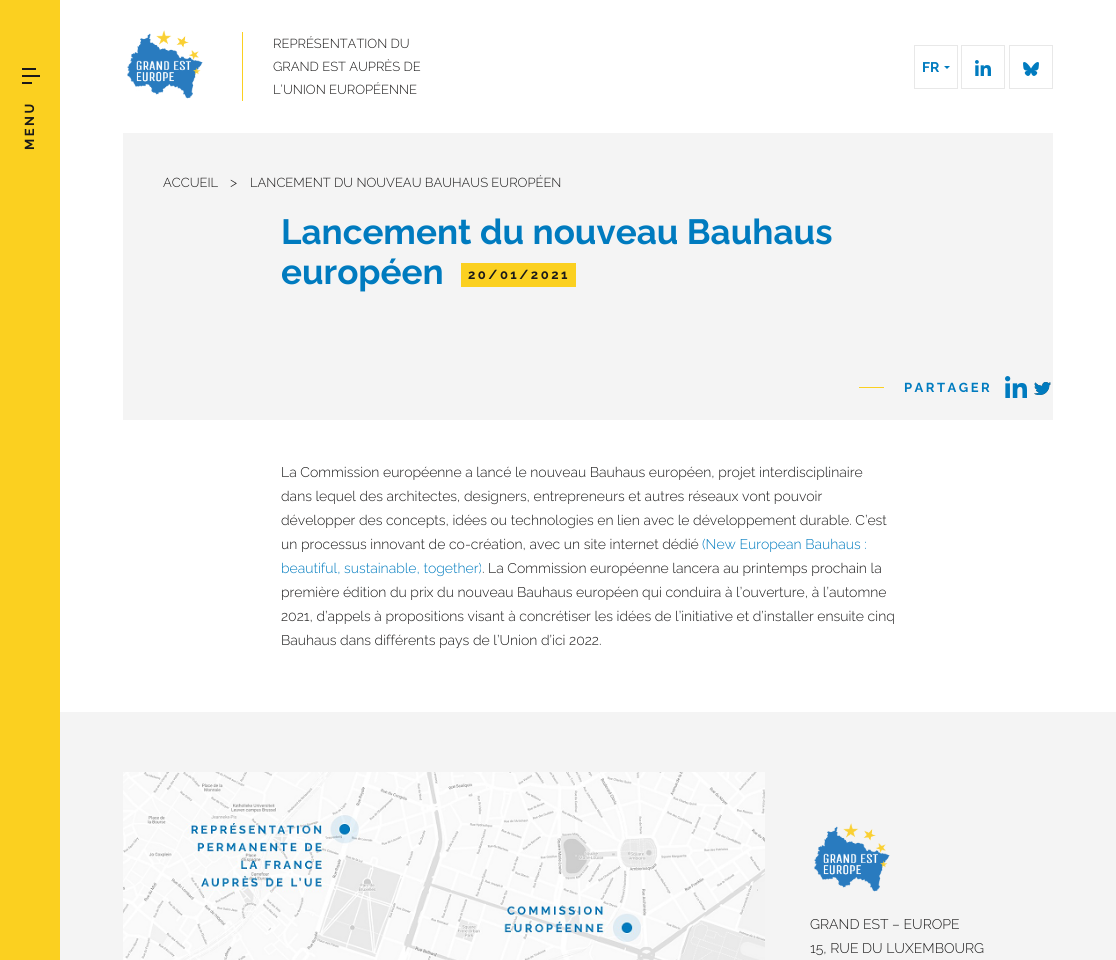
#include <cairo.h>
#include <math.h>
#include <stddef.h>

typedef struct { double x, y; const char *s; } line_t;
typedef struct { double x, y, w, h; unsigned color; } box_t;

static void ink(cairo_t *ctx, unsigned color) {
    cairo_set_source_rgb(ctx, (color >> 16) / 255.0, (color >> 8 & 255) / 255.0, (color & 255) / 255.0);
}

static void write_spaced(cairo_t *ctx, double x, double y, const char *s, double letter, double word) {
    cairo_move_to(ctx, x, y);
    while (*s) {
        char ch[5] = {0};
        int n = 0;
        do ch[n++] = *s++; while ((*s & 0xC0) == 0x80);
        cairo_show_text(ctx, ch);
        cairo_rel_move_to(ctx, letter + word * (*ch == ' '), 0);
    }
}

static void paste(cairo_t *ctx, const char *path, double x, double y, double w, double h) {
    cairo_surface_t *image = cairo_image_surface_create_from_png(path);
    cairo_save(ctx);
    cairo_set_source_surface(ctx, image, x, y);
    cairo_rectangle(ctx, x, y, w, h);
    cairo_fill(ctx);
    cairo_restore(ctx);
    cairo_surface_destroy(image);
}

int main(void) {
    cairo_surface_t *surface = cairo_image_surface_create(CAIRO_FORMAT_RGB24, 1116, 960);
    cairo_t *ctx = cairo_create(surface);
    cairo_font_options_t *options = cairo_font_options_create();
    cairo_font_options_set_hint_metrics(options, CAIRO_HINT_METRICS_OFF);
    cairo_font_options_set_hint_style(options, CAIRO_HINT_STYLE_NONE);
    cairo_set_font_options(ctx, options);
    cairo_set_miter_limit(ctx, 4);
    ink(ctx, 0xFFFFFF);
    cairo_paint(ctx);
    paste(ctx, "media/1.png", 127, 30, 76, 69);
    ink(ctx, 0xFBD020);
    cairo_rectangle(ctx, 242, 32, 1, 69);
    cairo_fill(ctx);
    cairo_select_font_face(ctx, "Raleway Light", CAIRO_FONT_SLANT_NORMAL, CAIRO_FONT_WEIGHT_NORMAL);
    cairo_set_font_size(ctx, 13);
    ink(ctx, 0x1A1919);
    {
        static const line_t items[] = {
            {273, 48, "REPRÉSENTATION DU"},
            {273, 71, "GRAND EST AUPRÈS DE"},
            {273, 94, "L’UNION EUROPÉENNE"},
        };
        for (size_t i = 0; i < sizeof items / sizeof *items; i++) {
            cairo_move_to(ctx, items[i].x, items[i].y);
            cairo_show_text(ctx, items[i].s);
        }
    }
    cairo_rectangle(ctx, 914.5, 45.5, 43, 43);
    ink(ctx, 0xE8E8E8);
    cairo_set_line_width(ctx, 1);
    cairo_stroke(ctx);
    cairo_select_font_face(ctx, "Raleway", CAIRO_FONT_SLANT_NORMAL, CAIRO_FONT_WEIGHT_BOLD);
    cairo_set_font_size(ctx, 14);
    ink(ctx, 0x007BBF);
    cairo_move_to(ctx, 922, 72);
    cairo_show_text(ctx, "FR");
    cairo_new_path(ctx);
    cairo_move_to(ctx, 944, 66);
    cairo_line_to(ctx, 950, 66);
    cairo_line_to(ctx, 947, 69);
    cairo_close_path(ctx);
    cairo_fill(ctx);
    cairo_rectangle(ctx, 961.5, 45.5, 43, 43);
    ink(ctx, 0xE8E8E8);
    cairo_stroke(ctx);
    paste(ctx, "media/2.png", 975, 60, 16, 16);
    cairo_rectangle(ctx, 1009.5, 45.5, 43, 43);
    cairo_stroke(ctx);
    paste(ctx, "media/3.png", 1023, 62, 16, 14);
    {
        static const box_t items[] = {
            {0, 0, 60, 960, 0xFBD020},
            {22, 68, 14, 2, 0x1A1919},
            {22, 75, 18, 2, 0x1A1919},
            {22, 82, 10, 2, 0x1A1919},
        };
        for (size_t i = 0; i < sizeof items / sizeof *items; i++) {
            ink(ctx, items[i].color);
            cairo_rectangle(ctx, items[i].x, items[i].y, items[i].w, items[i].h);
            cairo_fill(ctx);
        }
    }
    cairo_set_font_size(ctx, 13);
    cairo_save(ctx);
    cairo_translate(ctx, 34, 150);
    cairo_rotate(ctx, -90 * M_PI / 180);
    write_spaced(ctx, 0, 0, "MENU", 2.5, 0);
    cairo_restore(ctx);
    ink(ctx, 0xF4F4F4);
    cairo_rectangle(ctx, 123, 133, 930, 287);
    cairo_fill(ctx);
    cairo_select_font_face(ctx, "Raleway Light", CAIRO_FONT_SLANT_NORMAL, CAIRO_FONT_WEIGHT_NORMAL);
    ink(ctx, 0x1A1919);
    cairo_move_to(ctx, 163, 187);
    cairo_show_text(ctx, "ACCUEIL");
    cairo_set_font_size(ctx, 14);
    cairo_move_to(ctx, 230, 187);
    cairo_show_text(ctx, ">");
    cairo_set_font_size(ctx, 13);
    cairo_move_to(ctx, 250, 187);
    cairo_show_text(ctx, "LANCEMENT DU NOUVEAU BAUHAUS EUROPÉEN");
    cairo_select_font_face(ctx, "Raleway", CAIRO_FONT_SLANT_NORMAL, CAIRO_FONT_WEIGHT_BOLD);
    cairo_set_font_size(ctx, 35);
    ink(ctx, 0x007BBF);
    cairo_move_to(ctx, 281, 244);
    cairo_show_text(ctx, "Lancement du nouveau Bauhaus");
    cairo_move_to(ctx, 281, 284);
    cairo_show_text(ctx, "européen");
    ink(ctx, 0xFBD020);
    cairo_rectangle(ctx, 461, 263, 115, 24);
    cairo_fill(ctx);
    cairo_set_font_size(ctx, 13);
    ink(ctx, 0x1A1919);
    write_spaced(ctx, 468, 279, "20/01/2021", 2.5, 0);
    ink(ctx, 0xFBD020);
    cairo_rectangle(ctx, 859, 387, 25, 1);
    cairo_fill(ctx);
    ink(ctx, 0x007BBF);
    write_spaced(ctx, 904, 392, "PARTAGER", 2.5, 0);
    paste(ctx, "media/4.png", 1005, 376, 22, 22);
    paste(ctx, "media/5.png", 1034, 382, 17, 13);
    cairo_select_font_face(ctx, "Raleway Light", CAIRO_FONT_SLANT_NORMAL, CAIRO_FONT_WEIGHT_NORMAL);
    cairo_set_font_size(ctx, 14);
    ink(ctx, 0x1A1919);
    {
        static const line_t items[] = {
            {281, 477, "La Commission européenne a lancé le nouveau Bauhaus européen, projet interdisciplinaire"},
            {281, 501, "dans lequel des architectes, designers, entrepreneurs et autres réseaux vont pouvoir"},
            {281, 525, "développer des concepts, idées ou technologies en lien avec le développement durable. C’est"},
            {281, 549, "un processus innovant de co-création, avec un site internet dédié"},
        };
        for (size_t i = 0; i < sizeof items / sizeof *items; i++) {
            cairo_move_to(ctx, items[i].x, items[i].y);
            cairo_show_text(ctx, items[i].s);
        }
    }
    ink(ctx, 0x007BBF);
    cairo_move_to(ctx, 702, 549);
    cairo_show_text(ctx, "(New European Bauhaus :");
    cairo_move_to(ctx, 281, 573);
    cairo_show_text(ctx, "beautiful, sustainable, together)");
    ink(ctx, 0x1A1919);
    {
        static const line_t items[] = {
            {482, 573, ". La Commission européenne lancera au printemps prochain la"},
            {281, 597, "première édition du prix du nouveau Bauhaus européen qui conduira à l’ouverture, à l’automne"},
            {281, 621, "2021, d’appels à propositions visant à concrétiser les idées de l’initiative et d’installer ensuite cinq"},
            {281, 645, "Bauhaus dans différents pays de l’Union d’ici 2022."},
        };
        for (size_t i = 0; i < sizeof items / sizeof *items; i++) {
            cairo_move_to(ctx, items[i].x, items[i].y);
            cairo_show_text(ctx, items[i].s);
        }
    }
    ink(ctx, 0xF4F4F4);
    cairo_rectangle(ctx, 60, 712, 1056, 248);
    cairo_fill(ctx);
    paste(ctx, "media/6.png", 123, 772, 642, 188);
    paste(ctx, "media/7.png", 814, 823, 76, 69);
    ink(ctx, 0x1A1919);
    cairo_move_to(ctx, 810, 929);
    cairo_show_text(ctx, "GRAND EST – EUROPE");
    cairo_move_to(ctx, 810, 953);
    cairo_show_text(ctx, "15, RUE DU LUXEMBOURG");
    cairo_surface_write_to_png(surface, "image.png");
    cairo_font_options_destroy(options);
    cairo_destroy(ctx);
    cairo_surface_destroy(surface);
    return 0;
}
